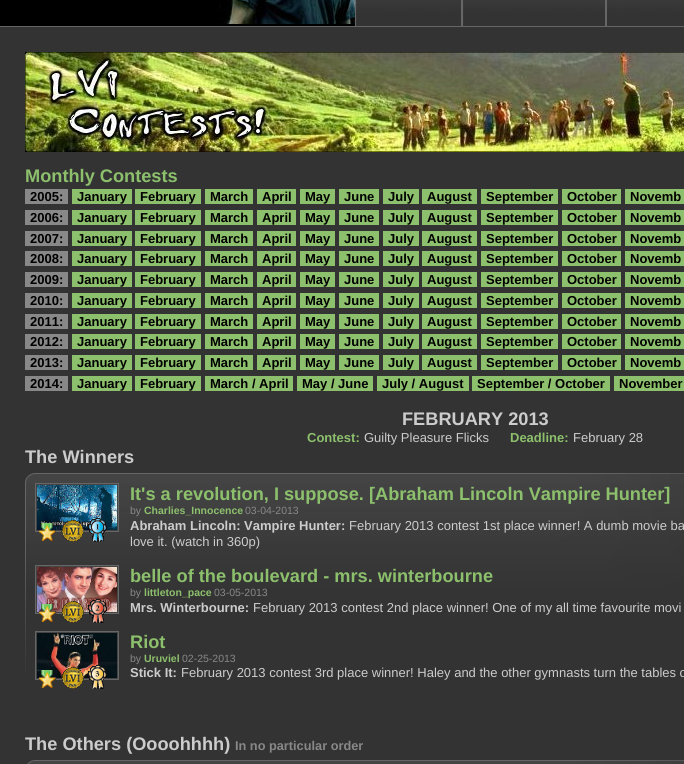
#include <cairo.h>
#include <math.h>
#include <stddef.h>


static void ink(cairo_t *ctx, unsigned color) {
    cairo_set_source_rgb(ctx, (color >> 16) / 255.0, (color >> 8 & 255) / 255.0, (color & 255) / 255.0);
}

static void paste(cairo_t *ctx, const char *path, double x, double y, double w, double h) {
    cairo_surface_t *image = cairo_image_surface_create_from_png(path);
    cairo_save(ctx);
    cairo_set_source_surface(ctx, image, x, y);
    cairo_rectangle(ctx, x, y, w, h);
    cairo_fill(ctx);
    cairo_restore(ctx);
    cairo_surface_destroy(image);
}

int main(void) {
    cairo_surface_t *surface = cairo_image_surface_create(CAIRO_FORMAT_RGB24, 684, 764);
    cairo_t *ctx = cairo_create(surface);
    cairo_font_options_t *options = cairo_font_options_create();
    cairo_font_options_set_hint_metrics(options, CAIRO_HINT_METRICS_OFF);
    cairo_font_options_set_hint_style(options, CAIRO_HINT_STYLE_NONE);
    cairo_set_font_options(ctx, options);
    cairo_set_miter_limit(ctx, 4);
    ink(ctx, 0x000000);
    cairo_paint(ctx);
    paste(ctx, "media/1.png", 219, 0, 136, 24);
    paste(ctx, "media/2.png", 355, 0, 106, 26);
    ink(ctx, 0x666666);
    cairo_rectangle(ctx, 461, 0, 1, 26);
    cairo_fill(ctx);
    paste(ctx, "media/3.png", 462, 0, 143, 26);
    cairo_rectangle(ctx, 605, 0, 1, 26);
    cairo_fill(ctx);
    paste(ctx, "media/4.png", 606, 0, 78, 26);
    ink(ctx, 0x333333);
    cairo_rectangle(ctx, 0, 27, 684, 737);
    cairo_fill(ctx);
    ink(ctx, 0x666666);
    cairo_rectangle(ctx, 0, 26, 684, 1);
    cairo_fill(ctx);
    paste(ctx, "media/5.png", 25, 52, 659, 100);
    cairo_select_font_face(ctx, "Liberation Sans", CAIRO_FONT_SLANT_NORMAL, CAIRO_FONT_WEIGHT_BOLD);
    cairo_set_font_size(ctx, 18.2);
    ink(ctx, 0x8CC06C);
    cairo_move_to(ctx, 25, 182);
    cairo_show_text(ctx, "Monthly Contests");
    ink(ctx, 0x888888);
    cairo_rectangle(ctx, 25, 189, 43, 15);
    cairo_fill(ctx);
    cairo_set_font_size(ctx, 13);
    ink(ctx, 0x000000);
    cairo_move_to(ctx, 30, 201);
    cairo_show_text(ctx, "2005:");
    ink(ctx, 0x8CC06C);
    cairo_rectangle(ctx, 72, 189, 60, 15);
    cairo_fill(ctx);
    ink(ctx, 0x000000);
    cairo_move_to(ctx, 77, 201);
    cairo_show_text(ctx, "January");
    ink(ctx, 0x8CC06C);
    cairo_rectangle(ctx, 135, 189, 66, 15);
    cairo_fill(ctx);
    ink(ctx, 0x000000);
    cairo_move_to(ctx, 140, 201);
    cairo_show_text(ctx, "February");
    ink(ctx, 0x8CC06C);
    cairo_rectangle(ctx, 205, 189, 48, 15);
    cairo_fill(ctx);
    ink(ctx, 0x000000);
    cairo_move_to(ctx, 210, 201);
    cairo_show_text(ctx, "March");
    ink(ctx, 0x8CC06C);
    cairo_rectangle(ctx, 257, 189, 39, 15);
    cairo_fill(ctx);
    ink(ctx, 0x000000);
    cairo_move_to(ctx, 262, 201);
    cairo_show_text(ctx, "April");
    ink(ctx, 0x8CC06C);
    cairo_rectangle(ctx, 300, 189, 35, 15);
    cairo_fill(ctx);
    ink(ctx, 0x000000);
    cairo_move_to(ctx, 305, 201);
    cairo_show_text(ctx, "May");
    ink(ctx, 0x8CC06C);
    cairo_rectangle(ctx, 339, 189, 40, 15);
    cairo_fill(ctx);
    ink(ctx, 0x000000);
    cairo_move_to(ctx, 344, 201);
    cairo_show_text(ctx, "June");
    ink(ctx, 0x8CC06C);
    cairo_rectangle(ctx, 383, 189, 36, 15);
    cairo_fill(ctx);
    ink(ctx, 0x000000);
    cairo_move_to(ctx, 388, 201);
    cairo_show_text(ctx, "July");
    ink(ctx, 0x8CC06C);
    cairo_rectangle(ctx, 422, 189, 55, 15);
    cairo_fill(ctx);
    ink(ctx, 0x000000);
    cairo_move_to(ctx, 427, 201);
    cairo_show_text(ctx, "August");
    ink(ctx, 0x8CC06C);
    cairo_rectangle(ctx, 481, 189, 77, 15);
    cairo_fill(ctx);
    ink(ctx, 0x000000);
    cairo_move_to(ctx, 486, 201);
    cairo_show_text(ctx, "September");
    ink(ctx, 0x8CC06C);
    cairo_rectangle(ctx, 562, 189, 59, 15);
    cairo_fill(ctx);
    ink(ctx, 0x000000);
    cairo_move_to(ctx, 567, 201);
    cairo_show_text(ctx, "October");
    ink(ctx, 0x8CC06C);
    cairo_rectangle(ctx, 625, 189, 59, 15);
    cairo_fill(ctx);
    ink(ctx, 0x000000);
    cairo_move_to(ctx, 630, 201);
    cairo_show_text(ctx, "Novemb");
    ink(ctx, 0x888888);
    cairo_rectangle(ctx, 25, 210, 43, 15);
    cairo_fill(ctx);
    ink(ctx, 0x000000);
    cairo_move_to(ctx, 30, 222);
    cairo_show_text(ctx, "2006:");
    ink(ctx, 0x8CC06C);
    cairo_rectangle(ctx, 72, 210, 60, 15);
    cairo_fill(ctx);
    ink(ctx, 0x000000);
    cairo_move_to(ctx, 77, 222);
    cairo_show_text(ctx, "January");
    ink(ctx, 0x8CC06C);
    cairo_rectangle(ctx, 135, 210, 66, 15);
    cairo_fill(ctx);
    ink(ctx, 0x000000);
    cairo_move_to(ctx, 140, 222);
    cairo_show_text(ctx, "February");
    ink(ctx, 0x8CC06C);
    cairo_rectangle(ctx, 205, 210, 48, 15);
    cairo_fill(ctx);
    ink(ctx, 0x000000);
    cairo_move_to(ctx, 210, 222);
    cairo_show_text(ctx, "March");
    ink(ctx, 0x8CC06C);
    cairo_rectangle(ctx, 257, 210, 39, 15);
    cairo_fill(ctx);
    ink(ctx, 0x000000);
    cairo_move_to(ctx, 262, 222);
    cairo_show_text(ctx, "April");
    ink(ctx, 0x8CC06C);
    cairo_rectangle(ctx, 300, 210, 35, 15);
    cairo_fill(ctx);
    ink(ctx, 0x000000);
    cairo_move_to(ctx, 305, 222);
    cairo_show_text(ctx, "May");
    ink(ctx, 0x8CC06C);
    cairo_rectangle(ctx, 339, 210, 40, 15);
    cairo_fill(ctx);
    ink(ctx, 0x000000);
    cairo_move_to(ctx, 344, 222);
    cairo_show_text(ctx, "June");
    ink(ctx, 0x8CC06C);
    cairo_rectangle(ctx, 383, 210, 36, 15);
    cairo_fill(ctx);
    ink(ctx, 0x000000);
    cairo_move_to(ctx, 388, 222);
    cairo_show_text(ctx, "July");
    ink(ctx, 0x8CC06C);
    cairo_rectangle(ctx, 422, 210, 55, 15);
    cairo_fill(ctx);
    ink(ctx, 0x000000);
    cairo_move_to(ctx, 427, 222);
    cairo_show_text(ctx, "August");
    ink(ctx, 0x8CC06C);
    cairo_rectangle(ctx, 481, 210, 77, 15);
    cairo_fill(ctx);
    ink(ctx, 0x000000);
    cairo_move_to(ctx, 486, 222);
    cairo_show_text(ctx, "September");
    ink(ctx, 0x8CC06C);
    cairo_rectangle(ctx, 562, 210, 59, 15);
    cairo_fill(ctx);
    ink(ctx, 0x000000);
    cairo_move_to(ctx, 567, 222);
    cairo_show_text(ctx, "October");
    ink(ctx, 0x8CC06C);
    cairo_rectangle(ctx, 625, 210, 59, 15);
    cairo_fill(ctx);
    ink(ctx, 0x000000);
    cairo_move_to(ctx, 630, 222);
    cairo_show_text(ctx, "Novemb");
    ink(ctx, 0x888888);
    cairo_rectangle(ctx, 25, 231, 43, 15);
    cairo_fill(ctx);
    ink(ctx, 0x000000);
    cairo_move_to(ctx, 30, 243);
    cairo_show_text(ctx, "2007:");
    ink(ctx, 0x8CC06C);
    cairo_rectangle(ctx, 72, 231, 60, 15);
    cairo_fill(ctx);
    ink(ctx, 0x000000);
    cairo_move_to(ctx, 77, 243);
    cairo_show_text(ctx, "January");
    ink(ctx, 0x8CC06C);
    cairo_rectangle(ctx, 135, 231, 66, 15);
    cairo_fill(ctx);
    ink(ctx, 0x000000);
    cairo_move_to(ctx, 140, 243);
    cairo_show_text(ctx, "February");
    ink(ctx, 0x8CC06C);
    cairo_rectangle(ctx, 205, 231, 48, 15);
    cairo_fill(ctx);
    ink(ctx, 0x000000);
    cairo_move_to(ctx, 210, 243);
    cairo_show_text(ctx, "March");
    ink(ctx, 0x8CC06C);
    cairo_rectangle(ctx, 257, 231, 39, 15);
    cairo_fill(ctx);
    ink(ctx, 0x000000);
    cairo_move_to(ctx, 262, 243);
    cairo_show_text(ctx, "April");
    ink(ctx, 0x8CC06C);
    cairo_rectangle(ctx, 300, 231, 35, 15);
    cairo_fill(ctx);
    ink(ctx, 0x000000);
    cairo_move_to(ctx, 305, 243);
    cairo_show_text(ctx, "May");
    ink(ctx, 0x8CC06C);
    cairo_rectangle(ctx, 339, 231, 40, 15);
    cairo_fill(ctx);
    ink(ctx, 0x000000);
    cairo_move_to(ctx, 344, 243);
    cairo_show_text(ctx, "June");
    ink(ctx, 0x8CC06C);
    cairo_rectangle(ctx, 383, 231, 36, 15);
    cairo_fill(ctx);
    ink(ctx, 0x000000);
    cairo_move_to(ctx, 388, 243);
    cairo_show_text(ctx, "July");
    ink(ctx, 0x8CC06C);
    cairo_rectangle(ctx, 422, 231, 55, 15);
    cairo_fill(ctx);
    ink(ctx, 0x000000);
    cairo_move_to(ctx, 427, 243);
    cairo_show_text(ctx, "August");
    ink(ctx, 0x8CC06C);
    cairo_rectangle(ctx, 481, 231, 77, 15);
    cairo_fill(ctx);
    ink(ctx, 0x000000);
    cairo_move_to(ctx, 486, 243);
    cairo_show_text(ctx, "September");
    ink(ctx, 0x8CC06C);
    cairo_rectangle(ctx, 562, 231, 59, 15);
    cairo_fill(ctx);
    ink(ctx, 0x000000);
    cairo_move_to(ctx, 567, 243);
    cairo_show_text(ctx, "October");
    ink(ctx, 0x8CC06C);
    cairo_rectangle(ctx, 625, 231, 59, 15);
    cairo_fill(ctx);
    ink(ctx, 0x000000);
    cairo_move_to(ctx, 630, 243);
    cairo_show_text(ctx, "Novemb");
    ink(ctx, 0x888888);
    cairo_rectangle(ctx, 25, 251, 43, 15);
    cairo_fill(ctx);
    ink(ctx, 0x000000);
    cairo_move_to(ctx, 30, 263);
    cairo_show_text(ctx, "2008:");
    ink(ctx, 0x8CC06C);
    cairo_rectangle(ctx, 72, 251, 60, 15);
    cairo_fill(ctx);
    ink(ctx, 0x000000);
    cairo_move_to(ctx, 77, 263);
    cairo_show_text(ctx, "January");
    ink(ctx, 0x8CC06C);
    cairo_rectangle(ctx, 135, 251, 66, 15);
    cairo_fill(ctx);
    ink(ctx, 0x000000);
    cairo_move_to(ctx, 140, 263);
    cairo_show_text(ctx, "February");
    ink(ctx, 0x8CC06C);
    cairo_rectangle(ctx, 205, 251, 48, 15);
    cairo_fill(ctx);
    ink(ctx, 0x000000);
    cairo_move_to(ctx, 210, 263);
    cairo_show_text(ctx, "March");
    ink(ctx, 0x8CC06C);
    cairo_rectangle(ctx, 257, 251, 39, 15);
    cairo_fill(ctx);
    ink(ctx, 0x000000);
    cairo_move_to(ctx, 262, 263);
    cairo_show_text(ctx, "April");
    ink(ctx, 0x8CC06C);
    cairo_rectangle(ctx, 300, 251, 35, 15);
    cairo_fill(ctx);
    ink(ctx, 0x000000);
    cairo_move_to(ctx, 305, 263);
    cairo_show_text(ctx, "May");
    ink(ctx, 0x8CC06C);
    cairo_rectangle(ctx, 339, 251, 40, 15);
    cairo_fill(ctx);
    ink(ctx, 0x000000);
    cairo_move_to(ctx, 344, 263);
    cairo_show_text(ctx, "June");
    ink(ctx, 0x8CC06C);
    cairo_rectangle(ctx, 383, 251, 36, 15);
    cairo_fill(ctx);
    ink(ctx, 0x000000);
    cairo_move_to(ctx, 388, 263);
    cairo_show_text(ctx, "July");
    ink(ctx, 0x8CC06C);
    cairo_rectangle(ctx, 422, 251, 55, 15);
    cairo_fill(ctx);
    ink(ctx, 0x000000);
    cairo_move_to(ctx, 427, 263);
    cairo_show_text(ctx, "August");
    ink(ctx, 0x8CC06C);
    cairo_rectangle(ctx, 481, 251, 77, 15);
    cairo_fill(ctx);
    ink(ctx, 0x000000);
    cairo_move_to(ctx, 486, 263);
    cairo_show_text(ctx, "September");
    ink(ctx, 0x8CC06C);
    cairo_rectangle(ctx, 562, 251, 59, 15);
    cairo_fill(ctx);
    ink(ctx, 0x000000);
    cairo_move_to(ctx, 567, 263);
    cairo_show_text(ctx, "October");
    ink(ctx, 0x8CC06C);
    cairo_rectangle(ctx, 625, 251, 59, 15);
    cairo_fill(ctx);
    ink(ctx, 0x000000);
    cairo_move_to(ctx, 630, 263);
    cairo_show_text(ctx, "Novemb");
    ink(ctx, 0x888888);
    cairo_rectangle(ctx, 25, 272, 43, 15);
    cairo_fill(ctx);
    ink(ctx, 0x000000);
    cairo_move_to(ctx, 30, 284);
    cairo_show_text(ctx, "2009:");
    ink(ctx, 0x8CC06C);
    cairo_rectangle(ctx, 72, 272, 60, 15);
    cairo_fill(ctx);
    ink(ctx, 0x000000);
    cairo_move_to(ctx, 77, 284);
    cairo_show_text(ctx, "January");
    ink(ctx, 0x8CC06C);
    cairo_rectangle(ctx, 135, 272, 66, 15);
    cairo_fill(ctx);
    ink(ctx, 0x000000);
    cairo_move_to(ctx, 140, 284);
    cairo_show_text(ctx, "February");
    ink(ctx, 0x8CC06C);
    cairo_rectangle(ctx, 205, 272, 48, 15);
    cairo_fill(ctx);
    ink(ctx, 0x000000);
    cairo_move_to(ctx, 210, 284);
    cairo_show_text(ctx, "March");
    ink(ctx, 0x8CC06C);
    cairo_rectangle(ctx, 257, 272, 39, 15);
    cairo_fill(ctx);
    ink(ctx, 0x000000);
    cairo_move_to(ctx, 262, 284);
    cairo_show_text(ctx, "April");
    ink(ctx, 0x8CC06C);
    cairo_rectangle(ctx, 300, 272, 35, 15);
    cairo_fill(ctx);
    ink(ctx, 0x000000);
    cairo_move_to(ctx, 305, 284);
    cairo_show_text(ctx, "May");
    ink(ctx, 0x8CC06C);
    cairo_rectangle(ctx, 339, 272, 40, 15);
    cairo_fill(ctx);
    ink(ctx, 0x000000);
    cairo_move_to(ctx, 344, 284);
    cairo_show_text(ctx, "June");
    ink(ctx, 0x8CC06C);
    cairo_rectangle(ctx, 383, 272, 36, 15);
    cairo_fill(ctx);
    ink(ctx, 0x000000);
    cairo_move_to(ctx, 388, 284);
    cairo_show_text(ctx, "July");
    ink(ctx, 0x8CC06C);
    cairo_rectangle(ctx, 422, 272, 55, 15);
    cairo_fill(ctx);
    ink(ctx, 0x000000);
    cairo_move_to(ctx, 427, 284);
    cairo_show_text(ctx, "August");
    ink(ctx, 0x8CC06C);
    cairo_rectangle(ctx, 481, 272, 77, 15);
    cairo_fill(ctx);
    ink(ctx, 0x000000);
    cairo_move_to(ctx, 486, 284);
    cairo_show_text(ctx, "September");
    ink(ctx, 0x8CC06C);
    cairo_rectangle(ctx, 562, 272, 59, 15);
    cairo_fill(ctx);
    ink(ctx, 0x000000);
    cairo_move_to(ctx, 567, 284);
    cairo_show_text(ctx, "October");
    ink(ctx, 0x8CC06C);
    cairo_rectangle(ctx, 625, 272, 59, 15);
    cairo_fill(ctx);
    ink(ctx, 0x000000);
    cairo_move_to(ctx, 630, 284);
    cairo_show_text(ctx, "Novemb");
    ink(ctx, 0x888888);
    cairo_rectangle(ctx, 25, 293, 43, 15);
    cairo_fill(ctx);
    ink(ctx, 0x000000);
    cairo_move_to(ctx, 30, 305);
    cairo_show_text(ctx, "2010:");
    ink(ctx, 0x8CC06C);
    cairo_rectangle(ctx, 72, 293, 60, 15);
    cairo_fill(ctx);
    ink(ctx, 0x000000);
    cairo_move_to(ctx, 77, 305);
    cairo_show_text(ctx, "January");
    ink(ctx, 0x8CC06C);
    cairo_rectangle(ctx, 135, 293, 66, 15);
    cairo_fill(ctx);
    ink(ctx, 0x000000);
    cairo_move_to(ctx, 140, 305);
    cairo_show_text(ctx, "February");
    ink(ctx, 0x8CC06C);
    cairo_rectangle(ctx, 205, 293, 48, 15);
    cairo_fill(ctx);
    ink(ctx, 0x000000);
    cairo_move_to(ctx, 210, 305);
    cairo_show_text(ctx, "March");
    ink(ctx, 0x8CC06C);
    cairo_rectangle(ctx, 257, 293, 39, 15);
    cairo_fill(ctx);
    ink(ctx, 0x000000);
    cairo_move_to(ctx, 262, 305);
    cairo_show_text(ctx, "April");
    ink(ctx, 0x8CC06C);
    cairo_rectangle(ctx, 300, 293, 35, 15);
    cairo_fill(ctx);
    ink(ctx, 0x000000);
    cairo_move_to(ctx, 305, 305);
    cairo_show_text(ctx, "May");
    ink(ctx, 0x8CC06C);
    cairo_rectangle(ctx, 339, 293, 40, 15);
    cairo_fill(ctx);
    ink(ctx, 0x000000);
    cairo_move_to(ctx, 344, 305);
    cairo_show_text(ctx, "June");
    ink(ctx, 0x8CC06C);
    cairo_rectangle(ctx, 383, 293, 36, 15);
    cairo_fill(ctx);
    ink(ctx, 0x000000);
    cairo_move_to(ctx, 388, 305);
    cairo_show_text(ctx, "July");
    ink(ctx, 0x8CC06C);
    cairo_rectangle(ctx, 422, 293, 55, 15);
    cairo_fill(ctx);
    ink(ctx, 0x000000);
    cairo_move_to(ctx, 427, 305);
    cairo_show_text(ctx, "August");
    ink(ctx, 0x8CC06C);
    cairo_rectangle(ctx, 481, 293, 77, 15);
    cairo_fill(ctx);
    ink(ctx, 0x000000);
    cairo_move_to(ctx, 486, 305);
    cairo_show_text(ctx, "September");
    ink(ctx, 0x8CC06C);
    cairo_rectangle(ctx, 562, 293, 59, 15);
    cairo_fill(ctx);
    ink(ctx, 0x000000);
    cairo_move_to(ctx, 567, 305);
    cairo_show_text(ctx, "October");
    ink(ctx, 0x8CC06C);
    cairo_rectangle(ctx, 625, 293, 59, 15);
    cairo_fill(ctx);
    ink(ctx, 0x000000);
    cairo_move_to(ctx, 630, 305);
    cairo_show_text(ctx, "Novemb");
    ink(ctx, 0x888888);
    cairo_rectangle(ctx, 25, 314, 43, 15);
    cairo_fill(ctx);
    ink(ctx, 0x000000);
    cairo_move_to(ctx, 30, 326);
    cairo_show_text(ctx, "2011:");
    ink(ctx, 0x8CC06C);
    cairo_rectangle(ctx, 72, 314, 60, 15);
    cairo_fill(ctx);
    ink(ctx, 0x000000);
    cairo_move_to(ctx, 77, 326);
    cairo_show_text(ctx, "January");
    ink(ctx, 0x8CC06C);
    cairo_rectangle(ctx, 135, 314, 66, 15);
    cairo_fill(ctx);
    ink(ctx, 0x000000);
    cairo_move_to(ctx, 140, 326);
    cairo_show_text(ctx, "February");
    ink(ctx, 0x8CC06C);
    cairo_rectangle(ctx, 205, 314, 48, 15);
    cairo_fill(ctx);
    ink(ctx, 0x000000);
    cairo_move_to(ctx, 210, 326);
    cairo_show_text(ctx, "March");
    ink(ctx, 0x8CC06C);
    cairo_rectangle(ctx, 257, 314, 39, 15);
    cairo_fill(ctx);
    ink(ctx, 0x000000);
    cairo_move_to(ctx, 262, 326);
    cairo_show_text(ctx, "April");
    ink(ctx, 0x8CC06C);
    cairo_rectangle(ctx, 300, 314, 35, 15);
    cairo_fill(ctx);
    ink(ctx, 0x000000);
    cairo_move_to(ctx, 305, 326);
    cairo_show_text(ctx, "May");
    ink(ctx, 0x8CC06C);
    cairo_rectangle(ctx, 339, 314, 40, 15);
    cairo_fill(ctx);
    ink(ctx, 0x000000);
    cairo_move_to(ctx, 344, 326);
    cairo_show_text(ctx, "June");
    ink(ctx, 0x8CC06C);
    cairo_rectangle(ctx, 383, 314, 36, 15);
    cairo_fill(ctx);
    ink(ctx, 0x000000);
    cairo_move_to(ctx, 388, 326);
    cairo_show_text(ctx, "July");
    ink(ctx, 0x8CC06C);
    cairo_rectangle(ctx, 422, 314, 55, 15);
    cairo_fill(ctx);
    ink(ctx, 0x000000);
    cairo_move_to(ctx, 427, 326);
    cairo_show_text(ctx, "August");
    ink(ctx, 0x8CC06C);
    cairo_rectangle(ctx, 481, 314, 77, 15);
    cairo_fill(ctx);
    ink(ctx, 0x000000);
    cairo_move_to(ctx, 486, 326);
    cairo_show_text(ctx, "September");
    ink(ctx, 0x8CC06C);
    cairo_rectangle(ctx, 562, 314, 59, 15);
    cairo_fill(ctx);
    ink(ctx, 0x000000);
    cairo_move_to(ctx, 567, 326);
    cairo_show_text(ctx, "October");
    ink(ctx, 0x8CC06C);
    cairo_rectangle(ctx, 625, 314, 59, 15);
    cairo_fill(ctx);
    ink(ctx, 0x000000);
    cairo_move_to(ctx, 630, 326);
    cairo_show_text(ctx, "Novemb");
    ink(ctx, 0x888888);
    cairo_rectangle(ctx, 25, 334, 43, 15);
    cairo_fill(ctx);
    ink(ctx, 0x000000);
    cairo_move_to(ctx, 30, 346);
    cairo_show_text(ctx, "2012:");
    ink(ctx, 0x8CC06C);
    cairo_rectangle(ctx, 72, 334, 60, 15);
    cairo_fill(ctx);
    ink(ctx, 0x000000);
    cairo_move_to(ctx, 77, 346);
    cairo_show_text(ctx, "January");
    ink(ctx, 0x8CC06C);
    cairo_rectangle(ctx, 135, 334, 66, 15);
    cairo_fill(ctx);
    ink(ctx, 0x000000);
    cairo_move_to(ctx, 140, 346);
    cairo_show_text(ctx, "February");
    ink(ctx, 0x8CC06C);
    cairo_rectangle(ctx, 205, 334, 48, 15);
    cairo_fill(ctx);
    ink(ctx, 0x000000);
    cairo_move_to(ctx, 210, 346);
    cairo_show_text(ctx, "March");
    ink(ctx, 0x8CC06C);
    cairo_rectangle(ctx, 257, 334, 39, 15);
    cairo_fill(ctx);
    ink(ctx, 0x000000);
    cairo_move_to(ctx, 262, 346);
    cairo_show_text(ctx, "April");
    ink(ctx, 0x8CC06C);
    cairo_rectangle(ctx, 300, 334, 35, 15);
    cairo_fill(ctx);
    ink(ctx, 0x000000);
    cairo_move_to(ctx, 305, 346);
    cairo_show_text(ctx, "May");
    ink(ctx, 0x8CC06C);
    cairo_rectangle(ctx, 339, 334, 40, 15);
    cairo_fill(ctx);
    ink(ctx, 0x000000);
    cairo_move_to(ctx, 344, 346);
    cairo_show_text(ctx, "June");
    ink(ctx, 0x8CC06C);
    cairo_rectangle(ctx, 383, 334, 36, 15);
    cairo_fill(ctx);
    ink(ctx, 0x000000);
    cairo_move_to(ctx, 388, 346);
    cairo_show_text(ctx, "July");
    ink(ctx, 0x8CC06C);
    cairo_rectangle(ctx, 422, 334, 55, 15);
    cairo_fill(ctx);
    ink(ctx, 0x000000);
    cairo_move_to(ctx, 427, 346);
    cairo_show_text(ctx, "August");
    ink(ctx, 0x8CC06C);
    cairo_rectangle(ctx, 481, 334, 77, 15);
    cairo_fill(ctx);
    ink(ctx, 0x000000);
    cairo_move_to(ctx, 486, 346);
    cairo_show_text(ctx, "September");
    ink(ctx, 0x8CC06C);
    cairo_rectangle(ctx, 562, 334, 59, 15);
    cairo_fill(ctx);
    ink(ctx, 0x000000);
    cairo_move_to(ctx, 567, 346);
    cairo_show_text(ctx, "October");
    ink(ctx, 0x8CC06C);
    cairo_rectangle(ctx, 625, 334, 59, 15);
    cairo_fill(ctx);
    ink(ctx, 0x000000);
    cairo_move_to(ctx, 630, 346);
    cairo_show_text(ctx, "Novemb");
    ink(ctx, 0x888888);
    cairo_rectangle(ctx, 25, 355, 43, 15);
    cairo_fill(ctx);
    ink(ctx, 0x000000);
    cairo_move_to(ctx, 30, 367);
    cairo_show_text(ctx, "2013:");
    ink(ctx, 0x8CC06C);
    cairo_rectangle(ctx, 72, 355, 60, 15);
    cairo_fill(ctx);
    ink(ctx, 0x000000);
    cairo_move_to(ctx, 77, 367);
    cairo_show_text(ctx, "January");
    ink(ctx, 0x8CC06C);
    cairo_rectangle(ctx, 135, 355, 66, 15);
    cairo_fill(ctx);
    ink(ctx, 0x000000);
    cairo_move_to(ctx, 140, 367);
    cairo_show_text(ctx, "February");
    ink(ctx, 0x8CC06C);
    cairo_rectangle(ctx, 205, 355, 48, 15);
    cairo_fill(ctx);
    ink(ctx, 0x000000);
    cairo_move_to(ctx, 210, 367);
    cairo_show_text(ctx, "March");
    ink(ctx, 0x8CC06C);
    cairo_rectangle(ctx, 257, 355, 39, 15);
    cairo_fill(ctx);
    ink(ctx, 0x000000);
    cairo_move_to(ctx, 262, 367);
    cairo_show_text(ctx, "April");
    ink(ctx, 0x8CC06C);
    cairo_rectangle(ctx, 300, 355, 35, 15);
    cairo_fill(ctx);
    ink(ctx, 0x000000);
    cairo_move_to(ctx, 305, 367);
    cairo_show_text(ctx, "May");
    ink(ctx, 0x8CC06C);
    cairo_rectangle(ctx, 339, 355, 40, 15);
    cairo_fill(ctx);
    ink(ctx, 0x000000);
    cairo_move_to(ctx, 344, 367);
    cairo_show_text(ctx, "June");
    ink(ctx, 0x8CC06C);
    cairo_rectangle(ctx, 383, 355, 36, 15);
    cairo_fill(ctx);
    ink(ctx, 0x000000);
    cairo_move_to(ctx, 388, 367);
    cairo_show_text(ctx, "July");
    ink(ctx, 0x8CC06C);
    cairo_rectangle(ctx, 422, 355, 55, 15);
    cairo_fill(ctx);
    ink(ctx, 0x000000);
    cairo_move_to(ctx, 427, 367);
    cairo_show_text(ctx, "August");
    ink(ctx, 0x8CC06C);
    cairo_rectangle(ctx, 481, 355, 77, 15);
    cairo_fill(ctx);
    ink(ctx, 0x000000);
    cairo_move_to(ctx, 486, 367);
    cairo_show_text(ctx, "September");
    ink(ctx, 0x8CC06C);
    cairo_rectangle(ctx, 562, 355, 59, 15);
    cairo_fill(ctx);
    ink(ctx, 0x000000);
    cairo_move_to(ctx, 567, 367);
    cairo_show_text(ctx, "October");
    ink(ctx, 0x8CC06C);
    cairo_rectangle(ctx, 625, 355, 59, 15);
    cairo_fill(ctx);
    ink(ctx, 0x000000);
    cairo_move_to(ctx, 630, 367);
    cairo_show_text(ctx, "Novemb");
    ink(ctx, 0x888888);
    cairo_rectangle(ctx, 25, 376, 43, 15);
    cairo_fill(ctx);
    ink(ctx, 0x000000);
    cairo_move_to(ctx, 30, 388);
    cairo_show_text(ctx, "2014:");
    ink(ctx, 0x8CC06C);
    cairo_rectangle(ctx, 72, 376, 60, 15);
    cairo_fill(ctx);
    ink(ctx, 0x000000);
    cairo_move_to(ctx, 77, 388);
    cairo_show_text(ctx, "January");
    ink(ctx, 0x8CC06C);
    cairo_rectangle(ctx, 135, 376, 66, 15);
    cairo_fill(ctx);
    ink(ctx, 0x000000);
    cairo_move_to(ctx, 140, 388);
    cairo_show_text(ctx, "February");
    ink(ctx, 0x8CC06C);
    cairo_rectangle(ctx, 205, 376, 88, 15);
    cairo_fill(ctx);
    ink(ctx, 0x000000);
    cairo_move_to(ctx, 210, 388);
    cairo_show_text(ctx, "March / April");
    ink(ctx, 0x8CC06C);
    cairo_rectangle(ctx, 297, 376, 76, 15);
    cairo_fill(ctx);
    ink(ctx, 0x000000);
    cairo_move_to(ctx, 302, 388);
    cairo_show_text(ctx, "May / June");
    ink(ctx, 0x8CC06C);
    cairo_rectangle(ctx, 377, 376, 92, 15);
    cairo_fill(ctx);
    ink(ctx, 0x000000);
    cairo_move_to(ctx, 382, 388);
    cairo_show_text(ctx, "July / August");
    ink(ctx, 0x8CC06C);
    cairo_rectangle(ctx, 472, 376, 138, 15);
    cairo_fill(ctx);
    ink(ctx, 0x000000);
    cairo_move_to(ctx, 477, 388);
    cairo_show_text(ctx, "September / October");
    ink(ctx, 0x8CC06C);
    cairo_rectangle(ctx, 614, 376, 70, 15);
    cairo_fill(ctx);
    ink(ctx, 0x000000);
    cairo_move_to(ctx, 619, 388);
    cairo_show_text(ctx, "November");
    cairo_set_font_size(ctx, 18.2);
    ink(ctx, 0xCCCCCC);
    cairo_move_to(ctx, 402, 425);
    cairo_show_text(ctx, "FEBRUARY 2013");
    cairo_set_font_size(ctx, 13);
    ink(ctx, 0x8CC06C);
    cairo_move_to(ctx, 307, 442);
    cairo_show_text(ctx, "Contest:");
    cairo_select_font_face(ctx, "Liberation Sans", CAIRO_FONT_SLANT_NORMAL, CAIRO_FONT_WEIGHT_NORMAL);
    ink(ctx, 0xCCCCCC);
    cairo_move_to(ctx, 364, 442);
    cairo_show_text(ctx, "Guilty Pleasure Flicks");
    cairo_select_font_face(ctx, "Liberation Sans", CAIRO_FONT_SLANT_NORMAL, CAIRO_FONT_WEIGHT_BOLD);
    ink(ctx, 0x8CC06C);
    cairo_move_to(ctx, 510, 442);
    cairo_show_text(ctx, "Deadline:");
    cairo_select_font_face(ctx, "Liberation Sans", CAIRO_FONT_SLANT_NORMAL, CAIRO_FONT_WEIGHT_NORMAL);
    ink(ctx, 0xCCCCCC);
    cairo_move_to(ctx, 573, 442);
    cairo_show_text(ctx, "February 28");
    cairo_select_font_face(ctx, "Liberation Sans", CAIRO_FONT_SLANT_NORMAL, CAIRO_FONT_WEIGHT_BOLD);
    cairo_set_font_size(ctx, 18.2);
    cairo_move_to(ctx, 25, 463);
    cairo_show_text(ctx, "The Winners");
    paste(ctx, "media/6.png", 25, 473, 659, 200);
    ink(ctx, 0x444444);
    cairo_rectangle(ctx, 36, 497, 82, 34);
    cairo_fill(ctx);
    cairo_rectangle(ctx, 35.5, 483.5, 83, 48);
    ink(ctx, 0x666666);
    cairo_set_line_width(ctx, 1);
    cairo_stroke(ctx);
    paste(ctx, "media/7.png", 37, 485, 80, 45);
    paste(ctx, "media/8.png", 39, 523, 17, 18);
    paste(ctx, "media/9.png", 61, 520, 23, 22);
    paste(ctx, "media/10.png", 88, 518, 19, 24);
    ink(ctx, 0x8CC06C);
    cairo_move_to(ctx, 130, 500);
    cairo_show_text(ctx, "It's a revolution, I suppose. [Abraham Lincoln Vampire Hunter]");
    cairo_select_font_face(ctx, "Liberation Sans", CAIRO_FONT_SLANT_NORMAL, CAIRO_FONT_WEIGHT_NORMAL);
    cairo_set_font_size(ctx, 10.5);
    ink(ctx, 0x888888);
    cairo_move_to(ctx, 130, 514);
    cairo_show_text(ctx, "by");
    cairo_select_font_face(ctx, "Liberation Sans", CAIRO_FONT_SLANT_NORMAL, CAIRO_FONT_WEIGHT_BOLD);
    ink(ctx, 0x8CC06C);
    cairo_move_to(ctx, 144, 514);
    cairo_show_text(ctx, "Charlies_Innocence");
    cairo_select_font_face(ctx, "Liberation Sans", CAIRO_FONT_SLANT_NORMAL, CAIRO_FONT_WEIGHT_NORMAL);
    ink(ctx, 0x888888);
    cairo_move_to(ctx, 245, 514);
    cairo_show_text(ctx, "03-04-2013");
    cairo_select_font_face(ctx, "Liberation Sans", CAIRO_FONT_SLANT_NORMAL, CAIRO_FONT_WEIGHT_BOLD);
    cairo_set_font_size(ctx, 13);
    ink(ctx, 0xCCCCCC);
    cairo_move_to(ctx, 130, 530);
    cairo_show_text(ctx, "Abraham Lincoln: Vampire Hunter:");
    cairo_select_font_face(ctx, "Liberation Sans", CAIRO_FONT_SLANT_NORMAL, CAIRO_FONT_WEIGHT_NORMAL);
    cairo_move_to(ctx, 349, 530);
    cairo_show_text(ctx, "February 2013 contest 1st place winner! A dumb movie ba");
    cairo_move_to(ctx, 130, 546);
    cairo_show_text(ctx, "love it. (watch in 360p)");
    ink(ctx, 0x444444);
    cairo_rectangle(ctx, 35.5, 565.5, 83, 48);
    cairo_fill_preserve(ctx);
    ink(ctx, 0x666666);
    cairo_stroke(ctx);
    paste(ctx, "media/11.png", 37, 567, 80, 45);
    paste(ctx, "media/12.png", 39, 604, 17, 18);
    paste(ctx, "media/13.png", 61, 601, 23, 22);
    paste(ctx, "media/14.png", 88, 599, 19, 24);
    cairo_select_font_face(ctx, "Liberation Sans", CAIRO_FONT_SLANT_NORMAL, CAIRO_FONT_WEIGHT_BOLD);
    cairo_set_font_size(ctx, 18.2);
    ink(ctx, 0x8CC06C);
    cairo_move_to(ctx, 130, 582);
    cairo_show_text(ctx, "belle of the boulevard - mrs. winterbourne");
    cairo_select_font_face(ctx, "Liberation Sans", CAIRO_FONT_SLANT_NORMAL, CAIRO_FONT_WEIGHT_NORMAL);
    cairo_set_font_size(ctx, 10.5);
    ink(ctx, 0x888888);
    cairo_move_to(ctx, 130, 596);
    cairo_show_text(ctx, "by");
    cairo_select_font_face(ctx, "Liberation Sans", CAIRO_FONT_SLANT_NORMAL, CAIRO_FONT_WEIGHT_BOLD);
    ink(ctx, 0x8CC06C);
    cairo_move_to(ctx, 144, 596);
    cairo_show_text(ctx, "littleton_pace");
    cairo_select_font_face(ctx, "Liberation Sans", CAIRO_FONT_SLANT_NORMAL, CAIRO_FONT_WEIGHT_NORMAL);
    ink(ctx, 0x888888);
    cairo_move_to(ctx, 214, 596);
    cairo_show_text(ctx, "03-05-2013");
    cairo_select_font_face(ctx, "Liberation Sans", CAIRO_FONT_SLANT_NORMAL, CAIRO_FONT_WEIGHT_BOLD);
    cairo_set_font_size(ctx, 13);
    ink(ctx, 0xCCCCCC);
    cairo_move_to(ctx, 130, 612);
    cairo_show_text(ctx, "Mrs. Winterbourne:");
    cairo_select_font_face(ctx, "Liberation Sans", CAIRO_FONT_SLANT_NORMAL, CAIRO_FONT_WEIGHT_NORMAL);
    cairo_move_to(ctx, 253, 612);
    cairo_show_text(ctx, "February 2013 contest 2nd place winner! One of my all time favourite movi");
    ink(ctx, 0x444444);
    cairo_rectangle(ctx, 35.5, 631.5, 83, 48);
    cairo_fill_preserve(ctx);
    ink(ctx, 0x666666);
    cairo_stroke(ctx);
    paste(ctx, "media/15.png", 37, 633, 80, 45);
    paste(ctx, "media/16.png", 39, 670, 17, 18);
    paste(ctx, "media/17.png", 61, 667, 23, 22);
    paste(ctx, "media/18.png", 88, 665, 19, 24);
    cairo_select_font_face(ctx, "Liberation Sans", CAIRO_FONT_SLANT_NORMAL, CAIRO_FONT_WEIGHT_BOLD);
    cairo_set_font_size(ctx, 18.2);
    ink(ctx, 0x8CC06C);
    cairo_move_to(ctx, 130, 648);
    cairo_show_text(ctx, "Riot");
    cairo_select_font_face(ctx, "Liberation Sans", CAIRO_FONT_SLANT_NORMAL, CAIRO_FONT_WEIGHT_NORMAL);
    cairo_set_font_size(ctx, 10.5);
    ink(ctx, 0x888888);
    cairo_move_to(ctx, 130, 662);
    cairo_show_text(ctx, "by");
    cairo_select_font_face(ctx, "Liberation Sans", CAIRO_FONT_SLANT_NORMAL, CAIRO_FONT_WEIGHT_BOLD);
    ink(ctx, 0x8CC06C);
    cairo_move_to(ctx, 144, 662);
    cairo_show_text(ctx, "Uruviel");
    cairo_select_font_face(ctx, "Liberation Sans", CAIRO_FONT_SLANT_NORMAL, CAIRO_FONT_WEIGHT_NORMAL);
    ink(ctx, 0x888888);
    cairo_move_to(ctx, 182, 662);
    cairo_show_text(ctx, "02-25-2013");
    cairo_select_font_face(ctx, "Liberation Sans", CAIRO_FONT_SLANT_NORMAL, CAIRO_FONT_WEIGHT_BOLD);
    cairo_set_font_size(ctx, 13);
    ink(ctx, 0xCCCCCC);
    cairo_move_to(ctx, 130, 677);
    cairo_show_text(ctx, "Stick It:");
    cairo_select_font_face(ctx, "Liberation Sans", CAIRO_FONT_SLANT_NORMAL, CAIRO_FONT_WEIGHT_NORMAL);
    cairo_move_to(ctx, 181, 677);
    cairo_show_text(ctx, "February 2013 contest 3rd place winner! Haley and the other gymnasts turn the tables o");
    cairo_select_font_face(ctx, "Liberation Sans", CAIRO_FONT_SLANT_NORMAL, CAIRO_FONT_WEIGHT_BOLD);
    cairo_set_font_size(ctx, 18.2);
    cairo_move_to(ctx, 25, 750);
    cairo_show_text(ctx, "The Others (Oooohhhh)");
    cairo_set_font_size(ctx, 12.75);
    ink(ctx, 0x888888);
    cairo_move_to(ctx, 235, 750);
    cairo_show_text(ctx, "In no particular order");
    paste(ctx, "media/19.png", 27, 760, 657, 4);
    cairo_surface_write_to_png(surface, "image.png");
    cairo_font_options_destroy(options);
    cairo_destroy(ctx);
    cairo_surface_destroy(surface);
    return 0;
}
